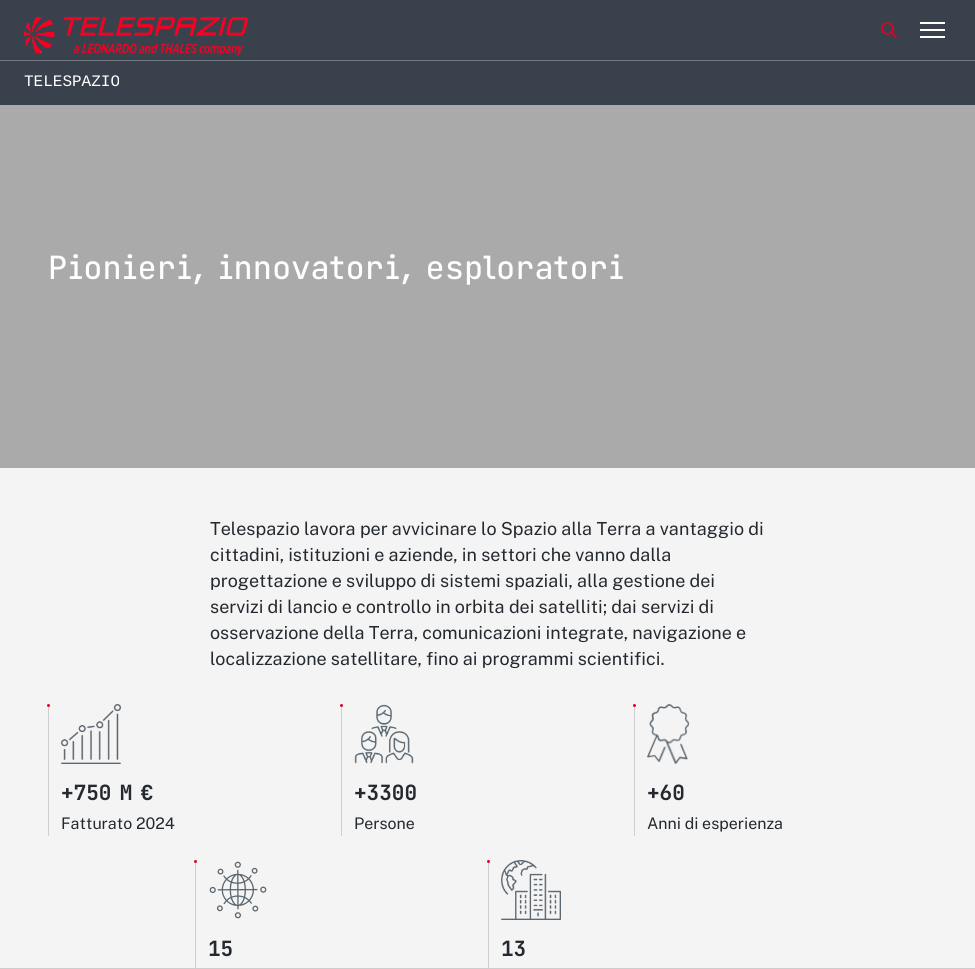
#include <cairo.h>
#include <math.h>
#include <stddef.h>

typedef struct { double x, y; const char *s; } line_t;
typedef struct { double x, y, w, h; unsigned color; } box_t;

static void ink(cairo_t *ctx, unsigned color) {
    cairo_set_source_rgb(ctx, (color >> 16) / 255.0, (color >> 8 & 255) / 255.0, (color & 255) / 255.0);
}

static void paste(cairo_t *ctx, const char *path, double x, double y, double w, double h) {
    cairo_surface_t *image = cairo_image_surface_create_from_png(path);
    cairo_save(ctx);
    cairo_set_source_surface(ctx, image, x, y);
    cairo_rectangle(ctx, x, y, w, h);
    cairo_fill(ctx);
    cairo_restore(ctx);
    cairo_surface_destroy(image);
}

int main(void) {
    cairo_surface_t *surface = cairo_image_surface_create(CAIRO_FORMAT_RGB24, 975, 969);
    cairo_t *ctx = cairo_create(surface);
    cairo_font_options_t *options = cairo_font_options_create();
    cairo_font_options_set_hint_metrics(options, CAIRO_HINT_METRICS_OFF);
    cairo_font_options_set_hint_style(options, CAIRO_HINT_STYLE_NONE);
    cairo_set_font_options(ctx, options);
    cairo_set_miter_limit(ctx, 4);
    ink(ctx, 0xF4F4F4);
    cairo_paint(ctx);
    ink(ctx, 0x39414C);
    cairo_rectangle(ctx, 0, 0, 975, 105);
    cairo_fill(ctx);
    paste(ctx, "media/1.png", 24, 17, 224, 38);
    cairo_arc(ctx, 887.5, 28.5, 5.5, 0, 2 * M_PI);
    ink(ctx, 0xE40025);
    cairo_set_line_width(ctx, 1.7);
    cairo_stroke(ctx);
    cairo_new_path(ctx);
    cairo_move_to(ctx, 892, 33);
    cairo_line_to(ctx, 896, 37);
    cairo_set_line_cap(ctx, CAIRO_LINE_CAP_SQUARE);
    cairo_stroke(ctx);
    {
        static const box_t items[] = {
            {920, 22, 25, 2, 0xFFFFFF},
            {920, 29, 25, 2, 0xFFFFFF},
            {920, 36, 25, 2, 0xFFFFFF},
            {0, 60, 975, 1, 0x747A82},
        };
        for (size_t i = 0; i < sizeof items / sizeof *items; i++) {
            ink(ctx, items[i].color);
            cairo_rectangle(ctx, items[i].x, items[i].y, items[i].w, items[i].h);
            cairo_fill(ctx);
        }
    }
    cairo_select_font_face(ctx, "Liberation Mono", CAIRO_FONT_SLANT_NORMAL, CAIRO_FONT_WEIGHT_NORMAL);
    cairo_set_font_size(ctx, 16);
    ink(ctx, 0xFFFFFF);
    cairo_move_to(ctx, 24, 86);
    cairo_show_text(ctx, "TELESPAZIO");
    ink(ctx, 0xAAAAAA);
    cairo_rectangle(ctx, 0, 105, 975, 363);
    cairo_fill(ctx);
    cairo_select_font_face(ctx, "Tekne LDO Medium", CAIRO_FONT_SLANT_NORMAL, CAIRO_FONT_WEIGHT_NORMAL);
    cairo_set_font_size(ctx, 32);
    ink(ctx, 0xFFFFFF);
    cairo_move_to(ctx, 48, 279);
    cairo_show_text(ctx, "Pionieri, innovatori, esploratori");
    cairo_select_font_face(ctx, "Public Sans Thin", CAIRO_FONT_SLANT_NORMAL, CAIRO_FONT_WEIGHT_NORMAL);
    cairo_set_font_size(ctx, 18);
    ink(ctx, 0x24292F);
    {
        static const line_t items[] = {
            {210, 535, "Telespazio lavora per avvicinare lo Spazio alla Terra a vantaggio di"},
            {210, 561, "cittadini, istituzioni e aziende, in settori che vanno dalla"},
            {210, 587, "progettazione e sviluppo di sistemi spaziali, alla gestione dei"},
            {210, 613, "servizi di lancio e controllo in orbita dei satelliti; dai servizi di"},
            {210, 639, "osservazione della Terra, comunicazioni integrate, navigazione e"},
            {210, 665, "localizzazione satellitare, fino ai programmi scientifici."},
        };
        for (size_t i = 0; i < sizeof items / sizeof *items; i++) {
            cairo_move_to(ctx, items[i].x, items[i].y);
            cairo_show_text(ctx, items[i].s);
        }
    }
    ink(ctx, 0xCFCFCF);
    cairo_rectangle(ctx, 48, 704, 1, 132);
    cairo_fill(ctx);
    ink(ctx, 0xE4002B);
    cairo_arc(ctx, 48.5, 705.5, 1.5, 0, 2 * M_PI);
    cairo_fill(ctx);
    paste(ctx, "media/2.png", 61, 704, 60, 60);
    cairo_select_font_face(ctx, "Tekne LDO", CAIRO_FONT_SLANT_NORMAL, CAIRO_FONT_WEIGHT_BOLD);
    cairo_set_font_size(ctx, 21);
    ink(ctx, 0x24292F);
    cairo_move_to(ctx, 61, 800);
    cairo_show_text(ctx, "+750 M €");
    cairo_select_font_face(ctx, "Public Sans Thin", CAIRO_FONT_SLANT_NORMAL, CAIRO_FONT_WEIGHT_NORMAL);
    cairo_set_font_size(ctx, 16);
    cairo_move_to(ctx, 61, 829);
    cairo_show_text(ctx, "Fatturato 2024");
    ink(ctx, 0xCFCFCF);
    cairo_rectangle(ctx, 341, 704, 1, 132);
    cairo_fill(ctx);
    ink(ctx, 0xE4002B);
    cairo_arc(ctx, 341.5, 705.5, 1.5, 0, 2 * M_PI);
    cairo_fill(ctx);
    paste(ctx, "media/3.png", 354, 704, 60, 60);
    cairo_select_font_face(ctx, "Tekne LDO", CAIRO_FONT_SLANT_NORMAL, CAIRO_FONT_WEIGHT_BOLD);
    cairo_set_font_size(ctx, 21);
    ink(ctx, 0x24292F);
    cairo_move_to(ctx, 354, 800);
    cairo_show_text(ctx, "+3300");
    cairo_select_font_face(ctx, "Public Sans Thin", CAIRO_FONT_SLANT_NORMAL, CAIRO_FONT_WEIGHT_NORMAL);
    cairo_set_font_size(ctx, 16);
    cairo_move_to(ctx, 354, 829);
    cairo_show_text(ctx, "Persone");
    ink(ctx, 0xCFCFCF);
    cairo_rectangle(ctx, 634, 704, 1, 132);
    cairo_fill(ctx);
    ink(ctx, 0xE4002B);
    cairo_arc(ctx, 634.5, 705.5, 1.5, 0, 2 * M_PI);
    cairo_fill(ctx);
    paste(ctx, "media/4.png", 647, 704, 42, 60);
    cairo_select_font_face(ctx, "Tekne LDO", CAIRO_FONT_SLANT_NORMAL, CAIRO_FONT_WEIGHT_BOLD);
    cairo_set_font_size(ctx, 21);
    ink(ctx, 0x24292F);
    cairo_move_to(ctx, 647, 800);
    cairo_show_text(ctx, "+60");
    cairo_select_font_face(ctx, "Public Sans Thin", CAIRO_FONT_SLANT_NORMAL, CAIRO_FONT_WEIGHT_NORMAL);
    cairo_set_font_size(ctx, 16);
    cairo_move_to(ctx, 647, 829);
    cairo_show_text(ctx, "Anni di esperienza");
    ink(ctx, 0xCFCFCF);
    cairo_rectangle(ctx, 195, 860, 1, 109);
    cairo_fill(ctx);
    ink(ctx, 0xE4002B);
    cairo_arc(ctx, 195.5, 861.5, 1.5, 0, 2 * M_PI);
    cairo_fill(ctx);
    paste(ctx, "media/5.png", 209, 861, 58, 58);
    cairo_select_font_face(ctx, "Tekne LDO", CAIRO_FONT_SLANT_NORMAL, CAIRO_FONT_WEIGHT_BOLD);
    cairo_set_font_size(ctx, 21);
    ink(ctx, 0x24292F);
    cairo_move_to(ctx, 208, 956);
    cairo_show_text(ctx, "15");
    ink(ctx, 0xCFCFCF);
    cairo_rectangle(ctx, 488, 860, 1, 109);
    cairo_fill(ctx);
    ink(ctx, 0xE4002B);
    cairo_arc(ctx, 488.5, 861.5, 1.5, 0, 2 * M_PI);
    cairo_fill(ctx);
    paste(ctx, "media/6.png", 501, 860, 60, 60);
    ink(ctx, 0x24292F);
    cairo_move_to(ctx, 501, 956);
    cairo_show_text(ctx, "13");
    ink(ctx, 0xCCCCCC);
    cairo_rectangle(ctx, 0, 968, 975, 1);
    cairo_fill(ctx);
    cairo_surface_write_to_png(surface, "image.png");
    cairo_font_options_destroy(options);
    cairo_destroy(ctx);
    cairo_surface_destroy(surface);
    return 0;
}
